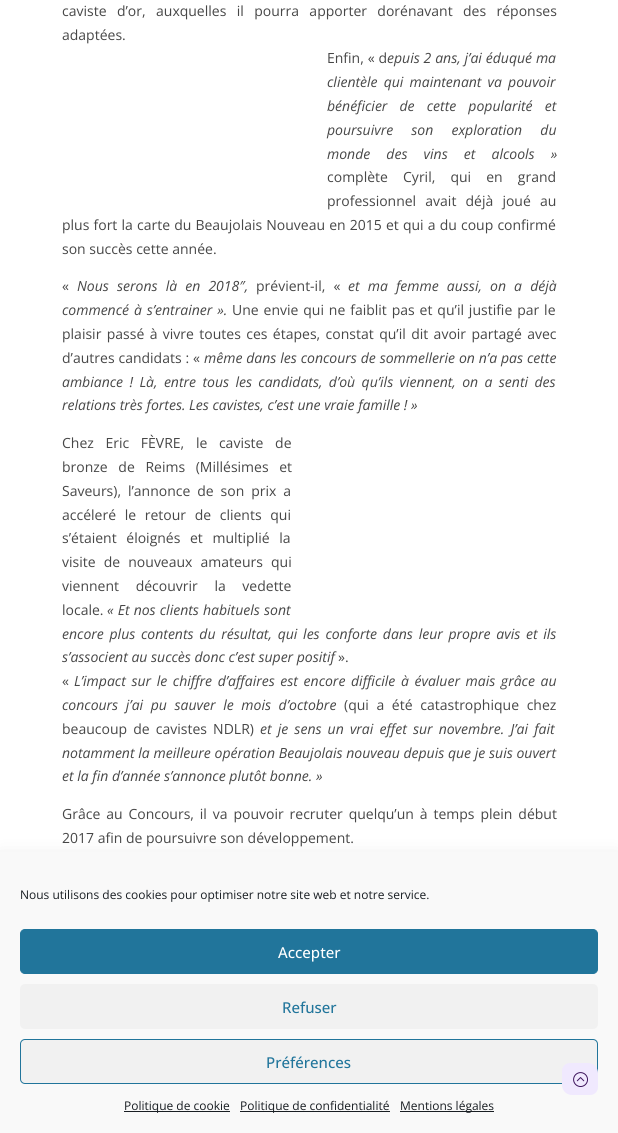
#include <cairo.h>
#include <math.h>
#include <stddef.h>


static void ink(cairo_t *ctx, unsigned color) {
    cairo_set_source_rgb(ctx, (color >> 16) / 255.0, (color >> 8 & 255) / 255.0, (color & 255) / 255.0);
}

static void write_spaced(cairo_t *ctx, double x, double y, const char *s, double letter, double word) {
    cairo_move_to(ctx, x, y);
    while (*s) {
        char ch[5] = {0};
        int n = 0;
        do ch[n++] = *s++; while ((*s & 0xC0) == 0x80);
        cairo_show_text(ctx, ch);
        cairo_rel_move_to(ctx, letter + word * (*ch == ' '), 0);
    }
}

static void round_path(cairo_t *ctx, double x, double y, double w, double h, double r) {
    cairo_new_sub_path(ctx);
    cairo_arc(ctx, x + w - r, y + h - r, r, 0, M_PI / 2);
    cairo_arc(ctx, x + r, y + h - r, r, M_PI / 2, M_PI);
    cairo_arc(ctx, x + r, y + r, r, M_PI, 1.5 * M_PI);
    cairo_arc(ctx, x + w - r, y + r, r, 1.5 * M_PI, 2 * M_PI);
    cairo_close_path(ctx);
}

static void blur_box(cairo_t *ctx, double x, double y, double w, double h, double r, double blur, double alpha) {
    cairo_push_group_with_content(ctx, CAIRO_CONTENT_ALPHA);
    cairo_set_operator(ctx, CAIRO_OPERATOR_SOURCE);
    for (int i = 15; i >= -15 && fmin(w, h) + blur * i / 3 > 0; i -= 2) {
        double e = blur * i / 6;
        cairo_set_source_rgba(ctx, 0, 0, 0, alpha * erfc((i - 1) / 8.5) / 2);
        round_path(ctx, x - e, y - e, w + 2 * e, h + 2 * e, fmax(0, fmin(r + e + blur * .6, fmin(w, h) / 2 + e)));
        cairo_fill(ctx);
    }
    cairo_pattern_t *soft = cairo_pop_group(ctx);
    cairo_mask(ctx, soft);
    cairo_pattern_destroy(soft);
}

static void paste(cairo_t *ctx, const char *path, double x, double y, double w, double h) {
    cairo_surface_t *image = cairo_image_surface_create_from_png(path);
    cairo_save(ctx);
    cairo_set_source_surface(ctx, image, x, y);
    cairo_rectangle(ctx, x, y, w, h);
    cairo_fill(ctx);
    cairo_restore(ctx);
    cairo_surface_destroy(image);
}

int main(void) {
    cairo_surface_t *surface = cairo_image_surface_create(CAIRO_FORMAT_RGB24, 618, 1133);
    cairo_t *ctx = cairo_create(surface);
    cairo_font_options_t *options = cairo_font_options_create();
    cairo_font_options_set_hint_metrics(options, CAIRO_HINT_METRICS_OFF);
    cairo_font_options_set_hint_style(options, CAIRO_HINT_STYLE_NONE);
    cairo_set_font_options(ctx, options);
    cairo_set_miter_limit(ctx, 4);
    ink(ctx, 0xFFFFFF);
    cairo_paint(ctx);
    cairo_select_font_face(ctx, "Open Sans", CAIRO_FONT_SLANT_NORMAL, CAIRO_FONT_WEIGHT_NORMAL);
    cairo_set_font_size(ctx, 14);
    ink(ctx, 0x474747);
    write_spaced(ctx, 62, 16, "caviste d’or, auxquelles il pourra apporter dorénavant des réponses", 0, 6.75);
    cairo_move_to(ctx, 62, 40);
    cairo_show_text(ctx, "adaptées.");
    write_spaced(ctx, 327, 63, "Enfin, « d", 0, 0.25);
    cairo_select_font_face(ctx, "Open Sans", CAIRO_FONT_SLANT_ITALIC, CAIRO_FONT_WEIGHT_NORMAL);
    write_spaced(ctx, 387, 63, "epuis 2 ans, j’ai éduqué ma", 0, 0.25);
    write_spaced(ctx, 327, 87, "clientèle qui maintenant va pouvoir", 0, 2.5);
    write_spaced(ctx, 327, 111, "bénéficier de cette popularité et", 0, 8.5);
    write_spaced(ctx, 327, 135, "poursuivre son exploration du", 0, 14.5);
    write_spaced(ctx, 327, 159, "monde des vins et alcools »", 0, 12.5);
    cairo_select_font_face(ctx, "Open Sans", CAIRO_FONT_SLANT_NORMAL, CAIRO_FONT_WEIGHT_NORMAL);
    write_spaced(ctx, 327, 182, "complète Cyril, qui en grand", 0, 11.5);
    write_spaced(ctx, 327, 206, "professionnel avait déjà joué au", 0, 5.5);
    write_spaced(ctx, 62, 230, "plus fort la carte du Beaujolais Nouveau en 2015 et qui a du coup confirmé", 0, 0.5);
    cairo_move_to(ctx, 62, 254);
    cairo_show_text(ctx, "son succès cette année.");
    cairo_move_to(ctx, 62, 291);
    cairo_show_text(ctx, "«");
    cairo_select_font_face(ctx, "Open Sans", CAIRO_FONT_SLANT_ITALIC, CAIRO_FONT_WEIGHT_NORMAL);
    write_spaced(ctx, 77, 291, "Nous serons là en 2018″,", 0, 4.5);
    cairo_select_font_face(ctx, "Open Sans", CAIRO_FONT_SLANT_NORMAL, CAIRO_FONT_WEIGHT_NORMAL);
    write_spaced(ctx, 256, 291, "prévient-il, «", 0, 4.5);
    cairo_select_font_face(ctx, "Open Sans", CAIRO_FONT_SLANT_ITALIC, CAIRO_FONT_WEIGHT_NORMAL);
    write_spaced(ctx, 348, 291, "et ma femme aussi, on a déjà", 0, 4.5);
    write_spaced(ctx, 62, 315, "commencé à s’entrainer ».", 0, 1.25);
    cairo_select_font_face(ctx, "Open Sans", CAIRO_FONT_SLANT_NORMAL, CAIRO_FONT_WEIGHT_NORMAL);
    write_spaced(ctx, 232, 315, "Une envie qui ne faiblit pas et qu’il justifie par le", 0, 1.25);
    write_spaced(ctx, 62, 339, "plaisir passé à vivre toutes ces étapes, constat qu’il dit avoir partagé avec", 0, 1.75);
    write_spaced(ctx, 62, 363, "d’autres candidats : «", 0, 0.25);
    cairo_select_font_face(ctx, "Open Sans", CAIRO_FONT_SLANT_ITALIC, CAIRO_FONT_WEIGHT_NORMAL);
    write_spaced(ctx, 204, 363, "même dans les concours de sommellerie on n’a pas cette", 0, 0.25);
    write_spaced(ctx, 62, 387, "ambiance ! Là, entre tous les candidats, d’où qu’ils viennent, on a senti des", 0, 2.75);
    cairo_move_to(ctx, 62, 410);
    cairo_show_text(ctx, "relations très fortes. Les cavistes, c’est une vraie famille ! »");
    cairo_select_font_face(ctx, "Open Sans", CAIRO_FONT_SLANT_NORMAL, CAIRO_FONT_WEIGHT_NORMAL);
    write_spaced(ctx, 62, 448, "Chez Eric FÈVRE, le caviste de", 0, 8);
    write_spaced(ctx, 62, 472, "bronze de Reims (Millésimes et", 0, 7);
    write_spaced(ctx, 62, 496, "Saveurs), l’annonce de son prix a", 0, 3.25);
    write_spaced(ctx, 62, 520, "accéleré le retour de clients qui", 0, 5);
    write_spaced(ctx, 62, 543, "s’étaient éloignés et multiplié la", 0, 6);
    write_spaced(ctx, 62, 567, "visite de nouveaux amateurs qui", 0, 4.5);
    write_spaced(ctx, 62, 591, "viennent découvrir la vedette", 0, 13);
    cairo_move_to(ctx, 62, 615);
    cairo_show_text(ctx, "locale.");
    cairo_select_font_face(ctx, "Open Sans", CAIRO_FONT_SLANT_ITALIC, CAIRO_FONT_WEIGHT_NORMAL);
    write_spaced(ctx, 107, 615, "« Et nos clients habituels sont", 0, 0.5);
    write_spaced(ctx, 62, 639, "encore plus contents du résultat, qui les conforte dans leur propre avis et ils", 0, 2.1);
    cairo_move_to(ctx, 62, 662);
    cairo_show_text(ctx, "s’associent au succès donc c’est super positif");
    cairo_select_font_face(ctx, "Open Sans", CAIRO_FONT_SLANT_NORMAL, CAIRO_FONT_WEIGHT_NORMAL);
    cairo_move_to(ctx, 338, 662);
    cairo_show_text(ctx, "».");
    cairo_move_to(ctx, 62, 686);
    cairo_show_text(ctx, "«");
    cairo_select_font_face(ctx, "Open Sans", CAIRO_FONT_SLANT_ITALIC, CAIRO_FONT_WEIGHT_NORMAL);
    write_spaced(ctx, 74, 686, "L’impact sur le chiffre d’affaires est encore difficile à évaluer mais grâce au", 0, 2);
    write_spaced(ctx, 62, 710, "concours j’ai pu sauver le mois d’octobre", 0, 4);
    cairo_select_font_face(ctx, "Open Sans", CAIRO_FONT_SLANT_NORMAL, CAIRO_FONT_WEIGHT_NORMAL);
    write_spaced(ctx, 344, 710, "(qui a été catastrophique chez", 0, 4);
    write_spaced(ctx, 62, 734, "beaucoup de cavistes NDLR)", 0, 2.5);
    cairo_select_font_face(ctx, "Open Sans", CAIRO_FONT_SLANT_ITALIC, CAIRO_FONT_WEIGHT_NORMAL);
    write_spaced(ctx, 260, 734, "et je sens un vrai effet sur novembre. J’ai fait", 0, 2.5);
    write_spaced(ctx, 62, 758, "notamment la meilleure opération Beaujolais nouveau depuis que je suis ouvert", 0, 0.1);
    cairo_move_to(ctx, 62, 781);
    cairo_show_text(ctx, "et la fin d’année s’annonce plutôt bonne. »");
    cairo_select_font_face(ctx, "Open Sans", CAIRO_FONT_SLANT_NORMAL, CAIRO_FONT_WEIGHT_NORMAL);
    write_spaced(ctx, 62, 819, "Grâce au Concours, il va pouvoir recruter quelqu’un à temps plein début", 0, 2.25);
    cairo_move_to(ctx, 62, 843);
    cairo_show_text(ctx, "2017 afin de poursuivre son développement.");
    ink(ctx, 0x000000);
    blur_box(ctx, 0, 861, 618, 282, 0, 10, 0.19);
    ink(ctx, 0xF9F9F9);
    cairo_rectangle(ctx, 0, 852, 618, 281);
    cairo_fill(ctx);
    cairo_set_font_size(ctx, 12);
    ink(ctx, 0x191E23);
    cairo_move_to(ctx, 20, 899);
    cairo_show_text(ctx, "Nous utilisons des cookies pour optimiser notre site web et notre service.");
    ink(ctx, 0x21759B);
    round_path(ctx, 20.5, 929.5, 577, 44, 4.5);
    cairo_fill_preserve(ctx);
    cairo_set_line_width(ctx, 1);
    cairo_stroke(ctx);
    cairo_select_font_face(ctx, "Open Sans Medium", CAIRO_FONT_SLANT_NORMAL, CAIRO_FONT_WEIGHT_NORMAL);
    cairo_set_font_size(ctx, 15);
    ink(ctx, 0xFFFFFF);
    cairo_move_to(ctx, 278, 958);
    cairo_show_text(ctx, "Accepter");
    ink(ctx, 0xF1F1F1);
    round_path(ctx, 20, 984, 578, 45, 5);
    cairo_fill(ctx);
    ink(ctx, 0x21759B);
    cairo_move_to(ctx, 282, 1013);
    cairo_show_text(ctx, "Refuser");
    ink(ctx, 0xF1F1F1);
    round_path(ctx, 20.5, 1039.5, 577, 44, 4.5);
    cairo_fill_preserve(ctx);
    ink(ctx, 0x21759B);
    cairo_stroke(ctx);
    cairo_move_to(ctx, 266, 1068);
    cairo_show_text(ctx, "Préférences");
    ink(ctx, 0x191E23);
    cairo_rectangle(ctx, 124, 1111, 106, 1);
    cairo_fill(ctx);
    cairo_select_font_face(ctx, "Open Sans", CAIRO_FONT_SLANT_NORMAL, CAIRO_FONT_WEIGHT_NORMAL);
    cairo_set_font_size(ctx, 12);
    cairo_move_to(ctx, 124, 1110);
    cairo_show_text(ctx, "Politique de cookie");
    cairo_rectangle(ctx, 240, 1111, 150, 1);
    cairo_fill(ctx);
    cairo_move_to(ctx, 240, 1110);
    cairo_show_text(ctx, "Politique de confidentialité");
    cairo_rectangle(ctx, 400, 1111, 94, 1);
    cairo_fill(ctx);
    cairo_move_to(ctx, 400, 1110);
    cairo_show_text(ctx, "Mentions légales");
    ink(ctx, 0xF0E9FE);
    cairo_new_path(ctx);
    cairo_move_to(ctx, 570, 1063);
    cairo_line_to(ctx, 588, 1063);
    cairo_curve_to(ctx, 593.5, 1063, 598, 1067.5, 598, 1073);
    cairo_line_to(ctx, 598, 1087);
    cairo_curve_to(ctx, 598, 1091.5, 594.5, 1095, 590, 1095);
    cairo_line_to(ctx, 572, 1095);
    cairo_curve_to(ctx, 566.5, 1095, 562, 1090.5, 562, 1085);
    cairo_line_to(ctx, 562, 1071);
    cairo_curve_to(ctx, 562, 1066.5, 565.5, 1063, 570, 1063);
    cairo_close_path(ctx);
    cairo_fill(ctx);
    paste(ctx, "media/1.png", 573, 1072, 15, 15);
    cairo_surface_write_to_png(surface, "image.png");
    cairo_font_options_destroy(options);
    cairo_destroy(ctx);
    cairo_surface_destroy(surface);
    return 0;
}
